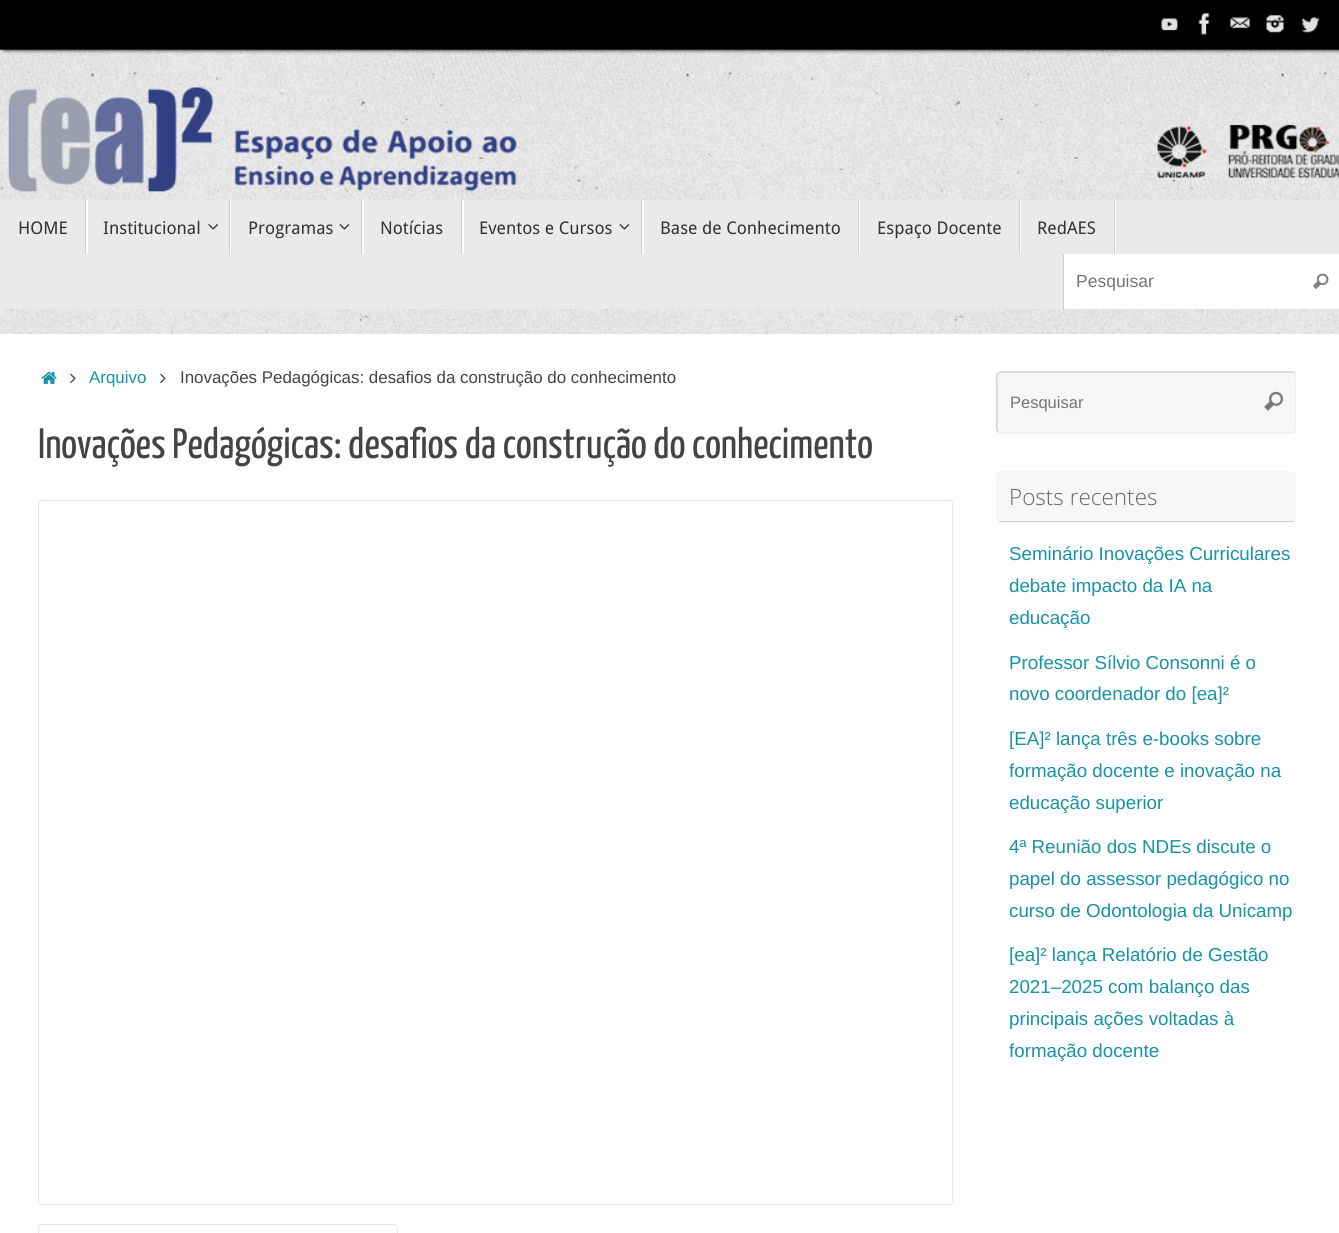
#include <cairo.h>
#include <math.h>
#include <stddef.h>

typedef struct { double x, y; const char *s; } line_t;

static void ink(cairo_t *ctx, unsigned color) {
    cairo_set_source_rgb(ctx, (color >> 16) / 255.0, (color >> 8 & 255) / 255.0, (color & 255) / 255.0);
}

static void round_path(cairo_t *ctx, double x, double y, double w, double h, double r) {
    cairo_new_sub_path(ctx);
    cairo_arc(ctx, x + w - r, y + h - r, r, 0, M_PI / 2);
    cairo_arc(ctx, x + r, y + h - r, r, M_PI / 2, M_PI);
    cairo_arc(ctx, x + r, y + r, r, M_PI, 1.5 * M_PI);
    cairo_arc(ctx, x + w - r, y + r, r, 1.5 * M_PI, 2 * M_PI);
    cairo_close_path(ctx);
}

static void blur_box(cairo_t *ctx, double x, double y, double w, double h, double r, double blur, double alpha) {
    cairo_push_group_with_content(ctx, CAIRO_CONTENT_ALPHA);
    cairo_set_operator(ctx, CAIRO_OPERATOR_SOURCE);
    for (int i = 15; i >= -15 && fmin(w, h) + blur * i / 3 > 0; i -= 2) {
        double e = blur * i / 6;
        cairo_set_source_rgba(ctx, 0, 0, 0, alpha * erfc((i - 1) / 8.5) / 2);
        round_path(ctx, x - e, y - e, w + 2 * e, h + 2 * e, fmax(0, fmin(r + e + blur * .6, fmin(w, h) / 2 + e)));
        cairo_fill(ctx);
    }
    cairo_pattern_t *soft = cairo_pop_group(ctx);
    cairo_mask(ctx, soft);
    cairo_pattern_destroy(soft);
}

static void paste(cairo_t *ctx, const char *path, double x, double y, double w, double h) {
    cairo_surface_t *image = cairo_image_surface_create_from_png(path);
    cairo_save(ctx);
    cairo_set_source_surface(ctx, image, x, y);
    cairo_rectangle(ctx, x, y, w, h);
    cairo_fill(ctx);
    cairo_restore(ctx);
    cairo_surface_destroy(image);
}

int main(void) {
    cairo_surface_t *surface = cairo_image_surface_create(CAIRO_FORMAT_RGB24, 1339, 1233);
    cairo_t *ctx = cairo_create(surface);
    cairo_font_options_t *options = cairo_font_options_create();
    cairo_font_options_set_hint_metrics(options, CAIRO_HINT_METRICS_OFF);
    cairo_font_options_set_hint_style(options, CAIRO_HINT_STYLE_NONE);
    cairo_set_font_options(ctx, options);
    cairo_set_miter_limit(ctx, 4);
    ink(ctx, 0xFFFFFF);
    cairo_paint(ctx);
    paste(ctx, "media/1.png", 0, 50, 1339, 284);
    ink(ctx, 0x000000);
    blur_box(ctx, 4, 0, 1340, 50, 0, 2, 1);
    ink(ctx, 0x000000);
    cairo_rectangle(ctx, 0, 0, 1339, 49);
    cairo_fill(ctx);
    ink(ctx, 0x282828);
    cairo_rectangle(ctx, 0, 49, 1339, 1);
    cairo_fill(ctx);
    paste(ctx, "media/2.png", 1161, 18, 17, 13);
    paste(ctx, "media/3.png", 1198, 13, 12, 22);
    paste(ctx, "media/4.png", 1230, 17, 20, 12);
    paste(ctx, "media/5.png", 1266, 15, 18, 18);
    paste(ctx, "media/6.png", 1301, 17, 19, 16);
    paste(ctx, "media/7.png", 8, 87, 1331, 105);
    ink(ctx, 0xEAEAEA);
    cairo_rectangle(ctx, 0, 200, 1339, 109);
    cairo_fill(ctx);
    ink(ctx, 0xFFFFFF);
    cairo_new_path(ctx);
    cairo_move_to(ctx, 1, 254);
    cairo_line_to(ctx, 88, 254);
    cairo_line_to(ctx, 88, 200);
    cairo_line_to(ctx, 86, 200);
    cairo_line_to(ctx, 86, 254);
    cairo_close_path(ctx);
    cairo_fill(ctx);
    ink(ctx, 0xCCCCCC);
    cairo_rectangle(ctx, 85, 200, 1, 54);
    cairo_fill(ctx);
    cairo_select_font_face(ctx, "Droid Sans", CAIRO_FONT_SLANT_NORMAL, CAIRO_FONT_WEIGHT_NORMAL);
    cairo_set_font_size(ctx, 17.5);
    ink(ctx, 0x333333);
    cairo_move_to(ctx, 18, 234);
    cairo_show_text(ctx, "HOME");
    ink(ctx, 0xFFFFFF);
    cairo_new_path(ctx);
    cairo_move_to(ctx, 88, 254);
    cairo_line_to(ctx, 231, 254);
    cairo_line_to(ctx, 231, 200);
    cairo_line_to(ctx, 230, 200);
    cairo_line_to(ctx, 230, 254);
    cairo_close_path(ctx);
    cairo_fill(ctx);
    ink(ctx, 0xCCCCCC);
    cairo_rectangle(ctx, 229, 200, 1, 54);
    cairo_fill(ctx);
    ink(ctx, 0x333333);
    cairo_move_to(ctx, 103, 234);
    cairo_show_text(ctx, "Institucional");
    paste(ctx, "media/8.png", 208, 224, 10, 6);
    ink(ctx, 0xFFFFFF);
    cairo_new_path(ctx);
    cairo_move_to(ctx, 231, 254);
    cairo_line_to(ctx, 364, 254);
    cairo_line_to(ctx, 364, 200);
    cairo_line_to(ctx, 362, 200);
    cairo_line_to(ctx, 362, 254);
    cairo_close_path(ctx);
    cairo_fill(ctx);
    ink(ctx, 0xCCCCCC);
    cairo_rectangle(ctx, 361, 200, 1, 54);
    cairo_fill(ctx);
    ink(ctx, 0x333333);
    cairo_move_to(ctx, 248, 234);
    cairo_show_text(ctx, "Programas");
    paste(ctx, "media/9.png", 339, 224, 11, 6);
    ink(ctx, 0xFFFFFF);
    cairo_new_path(ctx);
    cairo_move_to(ctx, 364, 254);
    cairo_line_to(ctx, 464, 254);
    cairo_line_to(ctx, 464, 200);
    cairo_line_to(ctx, 462, 200);
    cairo_line_to(ctx, 462, 254);
    cairo_close_path(ctx);
    cairo_fill(ctx);
    ink(ctx, 0xCCCCCC);
    cairo_rectangle(ctx, 461, 200, 1, 54);
    cairo_fill(ctx);
    ink(ctx, 0x333333);
    cairo_move_to(ctx, 380, 234);
    cairo_show_text(ctx, "Notícias");
    ink(ctx, 0xFFFFFF);
    cairo_new_path(ctx);
    cairo_move_to(ctx, 464, 254);
    cairo_line_to(ctx, 644, 254);
    cairo_line_to(ctx, 644, 200);
    cairo_line_to(ctx, 642, 200);
    cairo_line_to(ctx, 642, 254);
    cairo_close_path(ctx);
    cairo_fill(ctx);
    ink(ctx, 0xCCCCCC);
    cairo_rectangle(ctx, 641, 200, 1, 54);
    cairo_fill(ctx);
    ink(ctx, 0x333333);
    cairo_move_to(ctx, 479, 234);
    cairo_show_text(ctx, "Eventos e Cursos");
    paste(ctx, "media/9.png", 619, 224, 11, 6);
    ink(ctx, 0xFFFFFF);
    cairo_new_path(ctx);
    cairo_move_to(ctx, 644, 254);
    cairo_line_to(ctx, 860, 254);
    cairo_line_to(ctx, 860, 200);
    cairo_line_to(ctx, 859, 200);
    cairo_line_to(ctx, 859, 254);
    cairo_close_path(ctx);
    cairo_fill(ctx);
    ink(ctx, 0xCCCCCC);
    cairo_rectangle(ctx, 858, 200, 1, 54);
    cairo_fill(ctx);
    ink(ctx, 0x333333);
    cairo_move_to(ctx, 660, 234);
    cairo_show_text(ctx, "Base de Conhecimento");
    ink(ctx, 0xFFFFFF);
    cairo_new_path(ctx);
    cairo_move_to(ctx, 860, 254);
    cairo_line_to(ctx, 1021, 254);
    cairo_line_to(ctx, 1021, 200);
    cairo_line_to(ctx, 1020, 200);
    cairo_line_to(ctx, 1020, 254);
    cairo_close_path(ctx);
    cairo_fill(ctx);
    ink(ctx, 0xCCCCCC);
    cairo_rectangle(ctx, 1019, 200, 1, 54);
    cairo_fill(ctx);
    ink(ctx, 0x333333);
    cairo_move_to(ctx, 877, 234);
    cairo_show_text(ctx, "Espaço Docente");
    ink(ctx, 0xFFFFFF);
    cairo_new_path(ctx);
    cairo_move_to(ctx, 1021, 254);
    cairo_line_to(ctx, 1116, 254);
    cairo_line_to(ctx, 1116, 200);
    cairo_line_to(ctx, 1115, 200);
    cairo_line_to(ctx, 1115, 254);
    cairo_close_path(ctx);
    cairo_fill(ctx);
    ink(ctx, 0xCCCCCC);
    cairo_rectangle(ctx, 1114, 200, 1, 54);
    cairo_fill(ctx);
    ink(ctx, 0x333333);
    cairo_move_to(ctx, 1037, 234);
    cairo_show_text(ctx, "RedAES");
    ink(ctx, 0xFFFFFF);
    cairo_rectangle(ctx, 1064, 254, 275, 55);
    cairo_fill(ctx);
    ink(ctx, 0xCCCCCC);
    cairo_rectangle(ctx, 1063, 254, 1, 55);
    cairo_fill(ctx);
    cairo_select_font_face(ctx, "Liberation Sans", CAIRO_FONT_SLANT_NORMAL, CAIRO_FONT_WEIGHT_NORMAL);
    ink(ctx, 0x757575);
    cairo_move_to(ctx, 1076, 287);
    cairo_show_text(ctx, "Pesquisar");
    paste(ctx, "media/10.png", 1313, 273, 16, 16);
    paste(ctx, "media/11.png", 41, 371, 16, 13);
    paste(ctx, "media/12.png", 70, 373, 6, 11);
    cairo_set_font_size(ctx, 16.9);
    ink(ctx, 0x1693A5);
    cairo_move_to(ctx, 89, 383);
    cairo_show_text(ctx, "Arquivo");
    paste(ctx, "media/12.png", 160, 373, 6, 11);
    ink(ctx, 0x444444);
    cairo_move_to(ctx, 180, 383);
    cairo_show_text(ctx, "Inovações Pedagógicas: desafios da construção do conhecimento");
    cairo_select_font_face(ctx, "Yanone Kaffeesatz", CAIRO_FONT_SLANT_NORMAL, CAIRO_FONT_WEIGHT_NORMAL);
    cairo_set_font_size(ctx, 42.5);
    cairo_move_to(ctx, 38, 458);
    cairo_show_text(ctx, "Inovações Pedagógicas: desafios da construção do conhecimento");
    round_path(ctx, 38.5, 500.5, 914, 704, 3.5);
    ink(ctx, 0xE5E5E5);
    cairo_set_line_width(ctx, 1);
    cairo_stroke(ctx);
    round_path(ctx, 38.5, 1224.5, 359, 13, 3.5);
    cairo_stroke(ctx);
    ink(ctx, 0xF7F7F7);
    round_path(ctx, 996, 371, 300, 63, 5);
    cairo_fill(ctx);
    cairo_save(ctx);
    cairo_rectangle(ctx, 996, 371, 300, 63);
    cairo_clip(ctx);
    cairo_new_path(ctx);
    cairo_move_to(ctx, 1294.5, 373);
    cairo_curve_to(ctx, 1297, 376, 1295.5, 383, 1295.5, 385);
    cairo_line_to(ctx, 1295.5, 420);
    cairo_curve_to(ctx, 1295.5, 423, 1297.5, 433, 1291, 433);
    cairo_line_to(ctx, 999.5, 433);
    cairo_line_to(ctx, 998, 432);
    ink(ctx, 0xEEEEEE);
    cairo_set_line_width(ctx, 1.2);
    cairo_stroke(ctx);
    cairo_restore(ctx);
    cairo_new_path(ctx);
    cairo_move_to(ctx, 998, 432);
    cairo_curve_to(ctx, 995.5, 429, 997, 422, 997, 420);
    cairo_line_to(ctx, 997, 385);
    cairo_curve_to(ctx, 997, 382, 995, 372, 1001, 372);
    cairo_line_to(ctx, 1293, 372);
    cairo_line_to(ctx, 1294.5, 373);
    ink(ctx, 0xCCCCCC);
    cairo_set_line_width(ctx, 1.2);
    cairo_stroke(ctx);
    cairo_select_font_face(ctx, "Liberation Sans", CAIRO_FONT_SLANT_NORMAL, CAIRO_FONT_WEIGHT_NORMAL);
    cairo_set_font_size(ctx, 16.5);
    ink(ctx, 0x757575);
    cairo_move_to(ctx, 1010, 408);
    cairo_show_text(ctx, "Pesquisar");
    paste(ctx, "media/13.png", 1264, 391, 20, 20);
    ink(ctx, 0xF7F7F7);
    round_path(ctx, 996, 471, 300, 52, 5);
    cairo_fill(ctx);
    ink(ctx, 0xCFCFCF);
    cairo_rectangle(ctx, 999, 521, 295, 1);
    cairo_fill(ctx);
    cairo_select_font_face(ctx, "Open Sans Light", CAIRO_FONT_SLANT_NORMAL, CAIRO_FONT_WEIGHT_NORMAL);
    cairo_set_font_size(ctx, 22.5);
    ink(ctx, 0x666666);
    cairo_move_to(ctx, 1009, 505);
    cairo_show_text(ctx, "Posts recentes");
    cairo_select_font_face(ctx, "Liberation Sans", CAIRO_FONT_SLANT_NORMAL, CAIRO_FONT_WEIGHT_NORMAL);
    cairo_set_font_size(ctx, 18.75);
    ink(ctx, 0x1693A5);
    {
        static const line_t items[] = {
            {1009, 560, "Seminário Inovações Curriculares"},
            {1009, 592, "debate impacto da IA na"},
            {1009, 624, "educação"},
            {1009, 669, "Professor Sílvio Consonni é o"},
            {1009, 700, "novo coordenador do [ea]²"},
            {1009, 745, "[EA]² lança três e-books sobre"},
            {1009, 777, "formação docente e inovação na"},
            {1009, 809, "educação superior"},
            {1009, 853, "4ª Reunião dos NDEs discute o"},
            {1009, 885, "papel do assessor pedagógico no"},
            {1009, 917, "curso de Odontologia da Unicamp"},
            {1009, 961, "[ea]² lança Relatório de Gestão"},
            {1009, 993, "2021–2025 com balanço das"},
            {1009, 1025, "principais ações voltadas à"},
            {1009, 1057, "formação docente"},
        };
        for (size_t i = 0; i < sizeof items / sizeof *items; i++) {
            cairo_move_to(ctx, items[i].x, items[i].y);
            cairo_show_text(ctx, items[i].s);
        }
    }
    cairo_surface_write_to_png(surface, "image.png");
    cairo_font_options_destroy(options);
    cairo_destroy(ctx);
    cairo_surface_destroy(surface);
    return 0;
}
